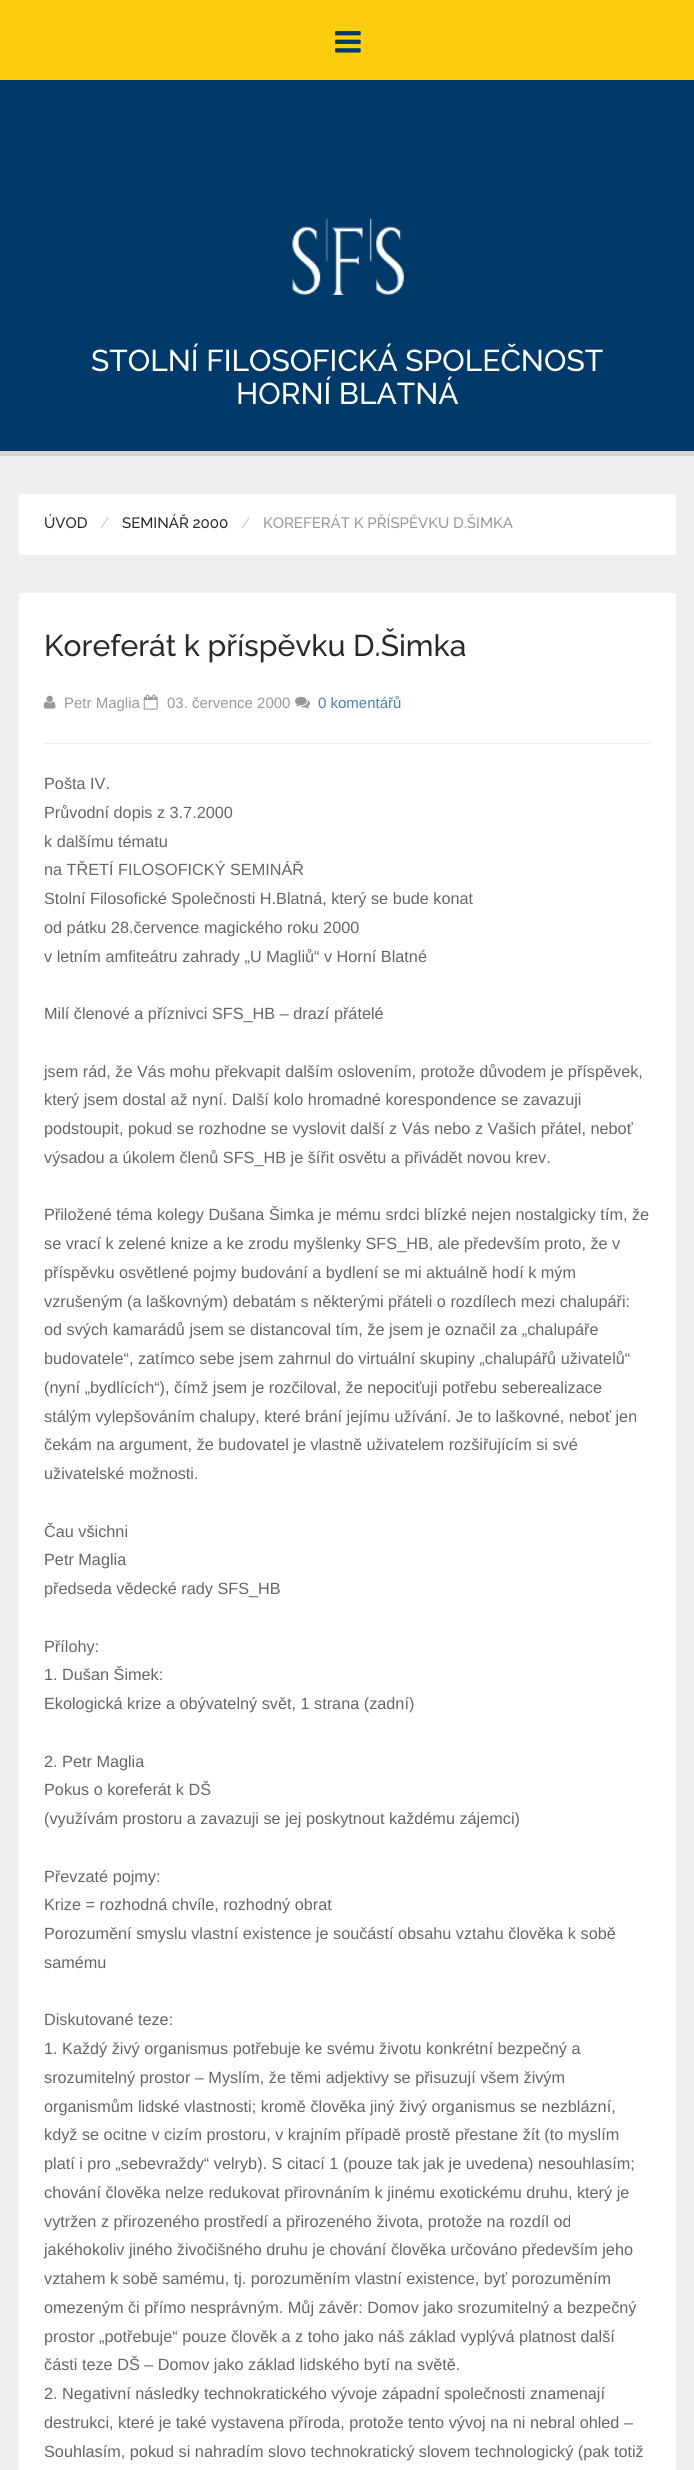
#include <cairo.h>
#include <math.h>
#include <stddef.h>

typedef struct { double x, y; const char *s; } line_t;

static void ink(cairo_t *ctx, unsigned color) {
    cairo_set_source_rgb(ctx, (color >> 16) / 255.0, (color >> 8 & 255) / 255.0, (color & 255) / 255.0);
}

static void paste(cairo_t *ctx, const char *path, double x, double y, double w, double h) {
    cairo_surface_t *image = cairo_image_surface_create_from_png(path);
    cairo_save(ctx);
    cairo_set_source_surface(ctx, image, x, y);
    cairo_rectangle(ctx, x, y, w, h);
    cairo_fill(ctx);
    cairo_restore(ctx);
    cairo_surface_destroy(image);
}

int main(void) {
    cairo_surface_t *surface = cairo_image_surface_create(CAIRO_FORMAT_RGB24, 694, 2470);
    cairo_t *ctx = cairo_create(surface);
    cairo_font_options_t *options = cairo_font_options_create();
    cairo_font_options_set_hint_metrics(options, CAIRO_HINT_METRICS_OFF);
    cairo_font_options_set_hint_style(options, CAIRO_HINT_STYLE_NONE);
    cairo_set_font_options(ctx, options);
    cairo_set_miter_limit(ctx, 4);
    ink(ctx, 0xEFEFEF);
    cairo_paint(ctx);
    ink(ctx, 0xFECD0B);
    cairo_rectangle(ctx, 0, 0, 694, 80);
    cairo_fill(ctx);
    paste(ctx, "media/1.png", 335, 31, 26, 22);
    ink(ctx, 0x003A6A);
    cairo_rectangle(ctx, 0, 80, 694, 371);
    cairo_fill(ctx);
    ink(ctx, 0xD5D5D5);
    cairo_rectangle(ctx, 0, 451, 694, 5);
    cairo_fill(ctx);
    paste(ctx, "media/2.png", 292, 218, 112, 77);
    cairo_select_font_face(ctx, "Raleway Medium", CAIRO_FONT_SLANT_NORMAL, CAIRO_FONT_WEIGHT_NORMAL);
    cairo_set_font_size(ctx, 30);
    ink(ctx, 0xFFFFFF);
    cairo_move_to(ctx, 91, 371);
    cairo_show_text(ctx, "STOLNÍ FILOSOFICKÁ SPOLEČNOST");
    cairo_move_to(ctx, 236, 404);
    cairo_show_text(ctx, "HORNÍ BLATNÁ");
    cairo_rectangle(ctx, 19, 494, 657, 61);
    cairo_fill(ctx);
    cairo_set_font_size(ctx, 15);
    ink(ctx, 0x282A2C);
    cairo_move_to(ctx, 44, 528);
    cairo_show_text(ctx, "ÚVOD");
    ink(ctx, 0xCCCCCC);
    cairo_move_to(ctx, 100, 528);
    cairo_show_text(ctx, "/");
    ink(ctx, 0x282A2C);
    cairo_move_to(ctx, 122, 528);
    cairo_show_text(ctx, "SEMINÁŘ 2000");
    ink(ctx, 0xCCCCCC);
    cairo_move_to(ctx, 241, 528);
    cairo_show_text(ctx, "/");
    ink(ctx, 0x999999);
    cairo_move_to(ctx, 263, 528);
    cairo_show_text(ctx, "KOREFERÁT K PŘÍSPĚVKU D.ŠIMKA");
    ink(ctx, 0xFFFFFF);
    cairo_rectangle(ctx, 19, 593, 657, 1877);
    cairo_fill(ctx);
    cairo_set_font_size(ctx, 30);
    ink(ctx, 0x282A2C);
    cairo_move_to(ctx, 44, 656);
    cairo_show_text(ctx, "Koreferát k příspěvku D.Šimka");
    paste(ctx, "media/3.png", 43, 695, 13, 14);
    cairo_select_font_face(ctx, "Liberation Sans", CAIRO_FONT_SLANT_NORMAL, CAIRO_FONT_WEIGHT_NORMAL);
    cairo_set_font_size(ctx, 15);
    ink(ctx, 0x999999);
    cairo_move_to(ctx, 64, 708);
    cairo_show_text(ctx, "Petr Maglia");
    paste(ctx, "media/4.png", 143, 694, 15, 16);
    cairo_move_to(ctx, 167, 708);
    cairo_show_text(ctx, "03. července 2000");
    paste(ctx, "media/5.png", 295, 696, 15, 13);
    ink(ctx, 0x4782B2);
    cairo_move_to(ctx, 318, 708);
    cairo_show_text(ctx, "0 komentářů");
    ink(ctx, 0xEEEEEE);
    cairo_rectangle(ctx, 44, 743, 607, 1);
    cairo_fill(ctx);
    cairo_set_font_size(ctx, 16.25);
    ink(ctx, 0x666666);
    {
        static const line_t items[] = {
            {44, 789, "Pošta IV."},
            {44, 818, "Průvodní dopis z 3.7.2000"},
            {44, 847, "k dalšímu tématu"},
            {44, 875, "na TŘETÍ FILOSOFICKÝ SEMINÁŘ"},
            {44, 904, "Stolní Filosofické Společnosti H.Blatná, který se bude konat"},
            {44, 933, "od pátku 28.července magického roku 2000"},
            {44, 962, "v letním amfiteátru zahrady „U Magliů“ v Horní Blatné"},
            {44, 1019, "Milí členové a příznivci SFS_HB – drazí přátelé"},
            {44, 1077, "jsem rád, že Vás mohu překvapit dalším oslovením, protože důvodem je příspěvek,"},
            {44, 1105, "který jsem dostal až nyní. Další kolo hromadné korespondence se zavazuji"},
            {44, 1134, "podstoupit, pokud se rozhodne se vyslovit další z Vás nebo z Vašich přátel, neboť"},
            {44, 1163, "výsadou a úkolem členů SFS_HB je šířit osvětu a přivádět novou krev."},
            {44, 1220, "Přiložené téma kolegy Dušana Šimka je mému srdci blízké nejen nostalgicky tím, že"},
            {44, 1249, "se vrací k zelené knize a ke zrodu myšlenky SFS_HB, ale především proto, že v"},
            {44, 1278, "příspěvku osvětlené pojmy budování a bydlení se mi aktuálně hodí k mým"},
            {44, 1307, "vzrušeným (a laškovným) debatám s některými přáteli o rozdílech mezi chalupáři:"},
            {44, 1335, "od svých kamarádů jsem se distancoval tím, že jsem je označil za „chalupáře"},
            {44, 1364, "budovatele“, zatímco sebe jsem zahrnul do virtuální skupiny „chalupářů uživatelů“"},
            {44, 1393, "(nyní „bydlících“), čímž jsem je rozčiloval, že nepociťuji potřebu seberealizace"},
            {44, 1422, "stálým vylepšováním chalupy, které brání jejímu užívání. Je to laškovné, neboť jen"},
            {44, 1450, "čekám na argument, že budovatel je vlastně uživatelem rozšiřujícím si své"},
            {44, 1479, "uživatelské možnosti."},
            {44, 1537, "Čau všichni"},
            {44, 1565, "Petr Maglia"},
            {44, 1594, "předseda vědecké rady SFS_HB"},
            {44, 1652, "Přílohy:"},
            {44, 1680, "1. Dušan Šimek:"},
            {44, 1709, "Ekologická krize a obývatelný svět, 1 strana (zadní)"},
            {44, 1767, "2. Petr Maglia"},
            {44, 1795, "Pokus o koreferát k DŠ"},
            {44, 1824, "(využívám prostoru a zavazuji se jej poskytnout každému zájemci)"},
            {44, 1882, "Převzaté pojmy:"},
            {44, 1910, "Krize = rozhodná chvíle, rozhodný obrat"},
            {44, 1939, "Porozumění smyslu vlastní existence je součástí obsahu vztahu člověka k sobě"},
            {44, 1968, "samému"},
            {44, 2025, "Diskutované teze:"},
            {44, 2054, "1. Každý živý organismus potřebuje ke svému životu konkrétní bezpečný a"},
            {44, 2083, "srozumitelný prostor – Myslím, že těmi adjektivy se přisuzují všem živým"},
            {44, 2112, "organismům lidské vlastnosti; kromě člověka jiný živý organismus se nezblázní,"},
            {44, 2140, "když se ocitne v cizím prostoru, v krajním případě prostě přestane žít (to myslím"},
            {44, 2169, "platí i pro „sebevraždy“ velryb). S citací 1 (pouze tak jak je uvedena) nesouhlasím;"},
            {44, 2198, "chování člověka nelze redukovat přirovnáním k jinému exotickému druhu, který je"},
            {44, 2227, "vytržen z přirozeného prostředí a přirozeného života, protože na rozdíl od"},
            {44, 2255, "jakéhokoliv jiného živočišného druhu je chování člověka určováno především jeho"},
            {44, 2284, "vztahem k sobě samému, tj. porozuměním vlastní existence, byť porozuměním"},
            {44, 2313, "omezeným či přímo nesprávným. Můj závěr: Domov jako srozumitelný a bezpečný"},
            {44, 2342, "prostor „potřebuje“ pouze člověk a z toho jako náš základ vyplývá platnost další"},
            {44, 2370, "části teze DŠ – Domov jako základ lidského bytí na světě."},
            {44, 2399, "2. Negativní následky technokratického vývoje západní společnosti znamenají"},
            {44, 2428, "destrukci, které je také vystavena příroda, protože tento vývoj na ni nebral ohled –"},
            {44, 2457, "Souhlasím, pokud si nahradím slovo technokratický slovem technologický (pak totiž"},
        };
        for (size_t i = 0; i < sizeof items / sizeof *items; i++) {
            cairo_move_to(ctx, items[i].x, items[i].y);
            cairo_show_text(ctx, items[i].s);
        }
    }
    cairo_surface_write_to_png(surface, "image.png");
    cairo_font_options_destroy(options);
    cairo_destroy(ctx);
    cairo_surface_destroy(surface);
    return 0;
}
